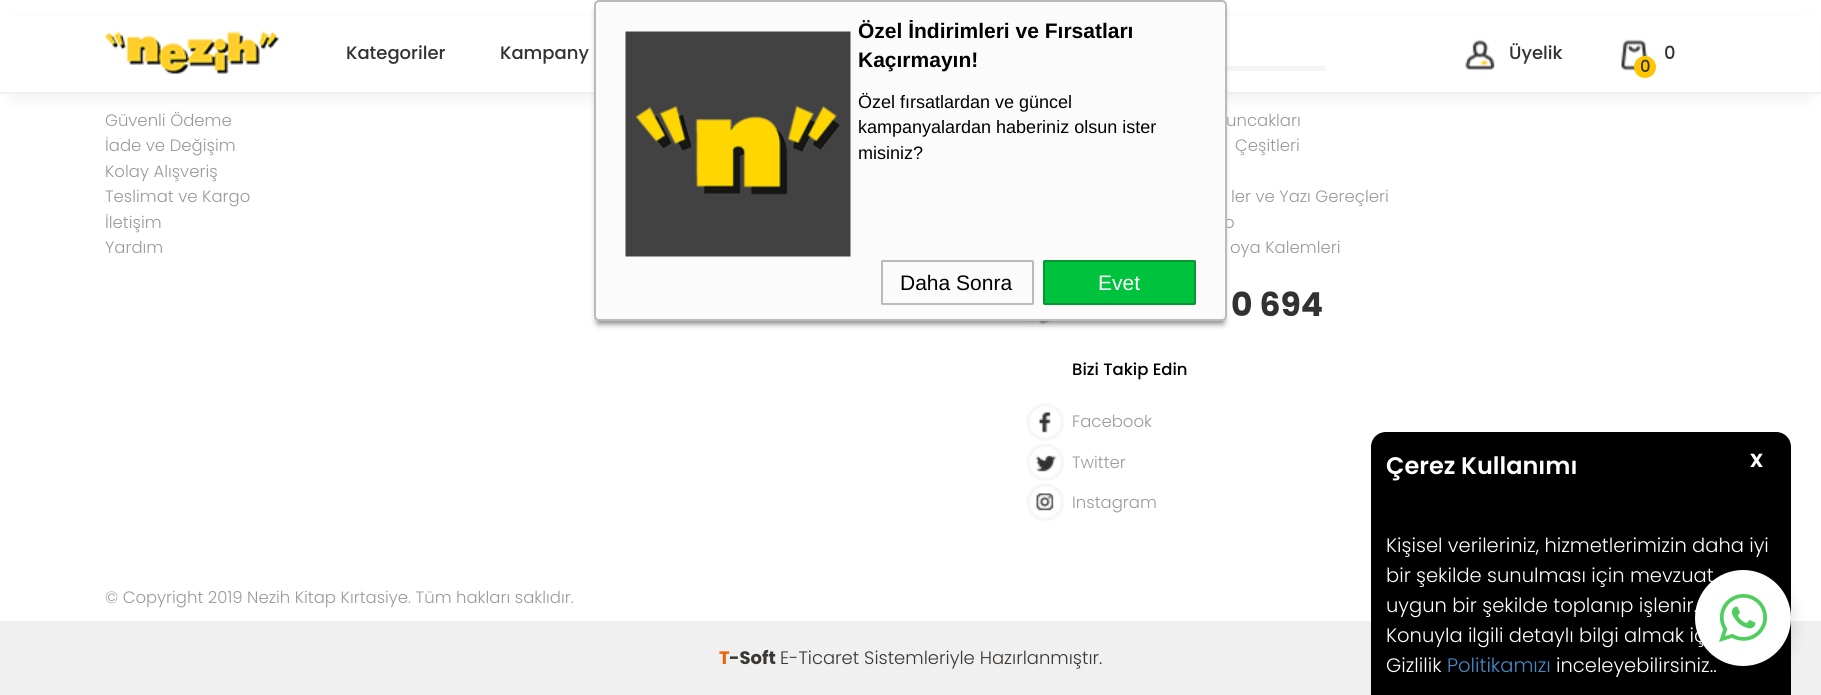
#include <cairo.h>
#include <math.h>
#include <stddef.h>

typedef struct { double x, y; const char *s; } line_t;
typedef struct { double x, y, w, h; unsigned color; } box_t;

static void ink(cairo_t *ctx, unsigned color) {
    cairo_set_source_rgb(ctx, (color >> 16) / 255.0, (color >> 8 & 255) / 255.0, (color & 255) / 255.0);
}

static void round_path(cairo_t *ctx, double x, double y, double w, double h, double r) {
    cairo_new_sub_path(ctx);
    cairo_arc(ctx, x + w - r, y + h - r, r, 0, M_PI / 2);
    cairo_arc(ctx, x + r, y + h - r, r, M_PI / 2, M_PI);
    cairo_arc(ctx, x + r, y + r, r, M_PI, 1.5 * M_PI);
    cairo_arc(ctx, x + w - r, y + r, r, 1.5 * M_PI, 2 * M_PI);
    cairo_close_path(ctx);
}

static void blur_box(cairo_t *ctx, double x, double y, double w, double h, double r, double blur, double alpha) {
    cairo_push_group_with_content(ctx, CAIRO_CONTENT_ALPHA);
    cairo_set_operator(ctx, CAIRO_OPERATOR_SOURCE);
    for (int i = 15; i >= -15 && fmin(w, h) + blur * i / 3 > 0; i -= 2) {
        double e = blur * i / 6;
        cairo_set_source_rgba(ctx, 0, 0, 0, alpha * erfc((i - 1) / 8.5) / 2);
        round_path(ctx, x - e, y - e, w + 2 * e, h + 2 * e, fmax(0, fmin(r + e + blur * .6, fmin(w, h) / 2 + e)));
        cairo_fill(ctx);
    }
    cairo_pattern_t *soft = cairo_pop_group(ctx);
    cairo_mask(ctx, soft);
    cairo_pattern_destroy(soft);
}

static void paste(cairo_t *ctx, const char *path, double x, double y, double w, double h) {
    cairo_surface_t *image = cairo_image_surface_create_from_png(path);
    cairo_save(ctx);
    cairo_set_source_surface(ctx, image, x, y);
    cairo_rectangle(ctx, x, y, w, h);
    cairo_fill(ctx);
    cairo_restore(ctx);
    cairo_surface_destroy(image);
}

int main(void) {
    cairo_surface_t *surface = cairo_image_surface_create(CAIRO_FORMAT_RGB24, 1821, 695);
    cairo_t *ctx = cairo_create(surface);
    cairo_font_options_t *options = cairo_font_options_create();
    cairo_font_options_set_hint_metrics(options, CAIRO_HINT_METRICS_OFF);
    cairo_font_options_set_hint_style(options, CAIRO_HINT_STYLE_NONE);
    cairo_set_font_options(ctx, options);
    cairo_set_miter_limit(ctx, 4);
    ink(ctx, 0xFFFFFF);
    cairo_paint(ctx);
    ink(ctx, 0x000000);
    blur_box(ctx, 12, 27, 1797, 69, 0, 10.5, 0.07);
    {
        static const box_t items[] = {
            {1, 16, 1819, 76, 0xFFFFFF},
            {0, 92, 1821, 2, 0xF0F0F0},
            {1227, 66, 99, 5, 0xF5F5F5},
        };
        for (size_t i = 0; i < sizeof items / sizeof *items; i++) {
            ink(ctx, items[i].color);
            cairo_rectangle(ctx, items[i].x, items[i].y, items[i].w, items[i].h);
            cairo_fill(ctx);
        }
    }
    paste(ctx, "media/5.png", 1028, 321, 24, 3);
    ink(ctx, 0x888888);
    blur_box(ctx, 597, 9, 627, 315, 1.5, 3, 1);
    cairo_select_font_face(ctx, "Poppins Light", CAIRO_FONT_SLANT_NORMAL, CAIRO_FONT_WEIGHT_NORMAL);
    cairo_set_font_size(ctx, 16.5);
    ink(ctx, 0x9A9A9A);
    cairo_move_to(ctx, 1224, 228);
    cairo_show_text(ctx, "o");
    ink(ctx, 0xFBFBFB);
    round_path(ctx, 595, 1, 631, 319, 4);
    cairo_fill_preserve(ctx);
    ink(ctx, 0xBABABA);
    cairo_stroke(ctx);
    paste(ctx, "media/1.png", 625, 31, 226, 226);
    cairo_select_font_face(ctx, "Liberation Sans", CAIRO_FONT_SLANT_NORMAL, CAIRO_FONT_WEIGHT_BOLD);
    cairo_set_font_size(ctx, 21);
    ink(ctx, 0x000000);
    cairo_move_to(ctx, 858, 38);
    cairo_show_text(ctx, "Özel İndirimleri ve Fırsatları");
    cairo_move_to(ctx, 858, 67);
    cairo_show_text(ctx, "Kaçırmayın!");
    cairo_select_font_face(ctx, "Liberation Sans", CAIRO_FONT_SLANT_NORMAL, CAIRO_FONT_WEIGHT_NORMAL);
    cairo_set_font_size(ctx, 18);
    {
        static const line_t items[] = {
            {858, 108, "Özel fırsatlardan ve güncel"},
            {858, 133, "kampanyalardan haberiniz olsun ister"},
            {858, 159, "misiniz?"},
        };
        for (size_t i = 0; i < sizeof items / sizeof *items; i++) {
            cairo_move_to(ctx, items[i].x, items[i].y);
            cairo_show_text(ctx, items[i].s);
        }
    }
    round_path(ctx, 882, 261, 151, 43, 0.5);
    ink(ctx, 0xBABABA);
    cairo_stroke(ctx);
    cairo_set_font_size(ctx, 21);
    ink(ctx, 0x000000);
    cairo_move_to(ctx, 900, 290);
    cairo_show_text(ctx, "Daha Sonra");
    ink(ctx, 0x00C33D);
    round_path(ctx, 1044, 261, 151, 43, 0.5);
    cairo_fill_preserve(ctx);
    ink(ctx, 0x059833);
    cairo_stroke(ctx);
    ink(ctx, 0xFFFFFF);
    cairo_move_to(ctx, 1098, 290);
    cairo_show_text(ctx, "Evet");
    paste(ctx, "media/2.png", 104, 31, 175, 43);
    cairo_select_font_face(ctx, "Poppins Medium", CAIRO_FONT_SLANT_NORMAL, CAIRO_FONT_WEIGHT_NORMAL);
    cairo_set_font_size(ctx, 18);
    ink(ctx, 0x323232);
    cairo_move_to(ctx, 346, 59);
    cairo_show_text(ctx, "Kategoriler");
    cairo_move_to(ctx, 500, 59);
    cairo_show_text(ctx, "Kampany");
    paste(ctx, "media/3.png", 1465, 39, 30, 32);
    cairo_move_to(ctx, 1509, 59);
    cairo_show_text(ctx, "Üyelik");
    paste(ctx, "media/4.png", 1621, 39, 27, 32);
    cairo_move_to(ctx, 1664, 59);
    cairo_show_text(ctx, "0");
    ink(ctx, 0xFFC500);
    cairo_new_path(ctx);
    cairo_arc(ctx, 1645, 67, 11, 0, 2 * M_PI);
    cairo_fill(ctx);
    cairo_set_font_size(ctx, 16.5);
    ink(ctx, 0x323232);
    cairo_move_to(ctx, 1640, 72);
    cairo_show_text(ctx, "0");
    cairo_select_font_face(ctx, "Poppins Light", CAIRO_FONT_SLANT_NORMAL, CAIRO_FONT_WEIGHT_NORMAL);
    ink(ctx, 0x9A9A9A);
    {
        static const line_t items[] = {
            {105, 126, "Güvenli Ödeme"},
            {105, 151, "İade ve Değişim"},
            {105, 177, "Kolay Alışveriş"},
            {105, 202, "Teslimat ve Kargo"},
            {105, 228, "İletişim"},
            {105, 253, "Yardım"},
            {1226, 126, "uncakları"},
            {1235, 151, "Çeşitleri"},
            {1231, 202, "ler ve Yazı Gereçleri"},
            {1230, 253, "oya Kalemleri"},
        };
        for (size_t i = 0; i < sizeof items / sizeof *items; i++) {
            cairo_move_to(ctx, items[i].x, items[i].y);
            cairo_show_text(ctx, items[i].s);
        }
    }
    cairo_select_font_face(ctx, "Poppins", CAIRO_FONT_SLANT_NORMAL, CAIRO_FONT_WEIGHT_BOLD);
    cairo_set_font_size(ctx, 33);
    ink(ctx, 0x323232);
    cairo_move_to(ctx, 1231, 316);
    cairo_show_text(ctx, "0 694");
    cairo_select_font_face(ctx, "Poppins Medium", CAIRO_FONT_SLANT_NORMAL, CAIRO_FONT_WEIGHT_NORMAL);
    cairo_set_font_size(ctx, 16.5);
    ink(ctx, 0x000000);
    cairo_move_to(ctx, 1072, 375);
    cairo_show_text(ctx, "Bizi Takip Edin");
    paste(ctx, "media/6.png", 1026, 403, 38, 38);
    cairo_select_font_face(ctx, "Poppins Light", CAIRO_FONT_SLANT_NORMAL, CAIRO_FONT_WEIGHT_NORMAL);
    ink(ctx, 0x9A9A9A);
    cairo_move_to(ctx, 1072, 427);
    cairo_show_text(ctx, "Facebook");
    paste(ctx, "media/7.png", 1026, 443, 38, 39);
    cairo_move_to(ctx, 1072, 468);
    cairo_show_text(ctx, "Twitter");
    paste(ctx, "media/8.png", 1026, 483, 39, 39);
    cairo_move_to(ctx, 1072, 508);
    cairo_show_text(ctx, "Instagram");
    cairo_move_to(ctx, 105, 603);
    cairo_show_text(ctx, "© Copyright 2019 Nezih Kitap Kırtasiye. Tüm hakları saklıdır.");
    ink(ctx, 0xF0F0F0);
    cairo_rectangle(ctx, 0, 621, 1821, 74);
    cairo_fill(ctx);
    ink(ctx, 0x000000);
    cairo_new_path(ctx);
    cairo_move_to(ctx, 1386, 432);
    cairo_line_to(ctx, 1776, 432);
    cairo_curve_to(ctx, 1784.5, 432, 1791, 438.5, 1791, 447);
    cairo_line_to(ctx, 1791, 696);
    cairo_line_to(ctx, 1371, 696);
    cairo_line_to(ctx, 1371, 447);
    cairo_curve_to(ctx, 1371, 438.5, 1377.5, 432, 1386, 432);
    cairo_close_path(ctx);
    cairo_fill(ctx);
    ink(ctx, 0x000000);
    blur_box(ctx, 1695, 575, 96, 96, 48, 9, 0.15);
    ink(ctx, 0xFFFFFF);
    cairo_arc(ctx, 1743, 618, 48, 0, 2 * M_PI);
    cairo_fill(ctx);
    paste(ctx, "media/9.png", 1719, 594, 48, 48);
    cairo_select_font_face(ctx, "Poppins", CAIRO_FONT_SLANT_NORMAL, CAIRO_FONT_WEIGHT_BOLD);
    cairo_set_font_size(ctx, 18);
    ink(ctx, 0xEC6408);
    cairo_move_to(ctx, 719, 664);
    cairo_show_text(ctx, "T");
    ink(ctx, 0x3B3734);
    cairo_move_to(ctx, 729, 664);
    cairo_show_text(ctx, "-Soft");
    cairo_select_font_face(ctx, "Poppins Light", CAIRO_FONT_SLANT_NORMAL, CAIRO_FONT_WEIGHT_NORMAL);
    cairo_move_to(ctx, 780, 664);
    cairo_show_text(ctx, "E-Ticaret Sistemleriyle Hazırlanmıştır.");
    cairo_select_font_face(ctx, "Poppins SemiBold", CAIRO_FONT_SLANT_NORMAL, CAIRO_FONT_WEIGHT_NORMAL);
    cairo_set_font_size(ctx, 24);
    ink(ctx, 0xFFFFFF);
    cairo_move_to(ctx, 1386, 474);
    cairo_show_text(ctx, "Çerez Kullanımı");
    cairo_move_to(ctx, 1750, 467);
    cairo_show_text(ctx, "x");
    cairo_select_font_face(ctx, "Poppins Light", CAIRO_FONT_SLANT_NORMAL, CAIRO_FONT_WEIGHT_NORMAL);
    cairo_set_font_size(ctx, 19.5);
    {
        static const line_t items[] = {
            {1386, 552, "Kişisel verileriniz, hizmetlerimizin daha iyi"},
            {1386, 582, "bir şekilde sunulması için mevzuat"},
            {1386, 612, "uygun bir şekilde toplanıp işlenir."},
            {1386, 642, "Konuyla ilgili detaylı bilgi almak iç"},
            {1386, 672, "Gizlilik"},
        };
        for (size_t i = 0; i < sizeof items / sizeof *items; i++) {
            cairo_move_to(ctx, items[i].x, items[i].y);
            cairo_show_text(ctx, items[i].s);
        }
    }
    ink(ctx, 0x428BCA);
    cairo_move_to(ctx, 1447, 672);
    cairo_show_text(ctx, "Politikamızı");
    ink(ctx, 0xFFFFFF);
    cairo_move_to(ctx, 1556, 672);
    cairo_show_text(ctx, "inceleyebilirsiniz..");
    cairo_surface_write_to_png(surface, "image.png");
    cairo_font_options_destroy(options);
    cairo_destroy(ctx);
    cairo_surface_destroy(surface);
    return 0;
}
